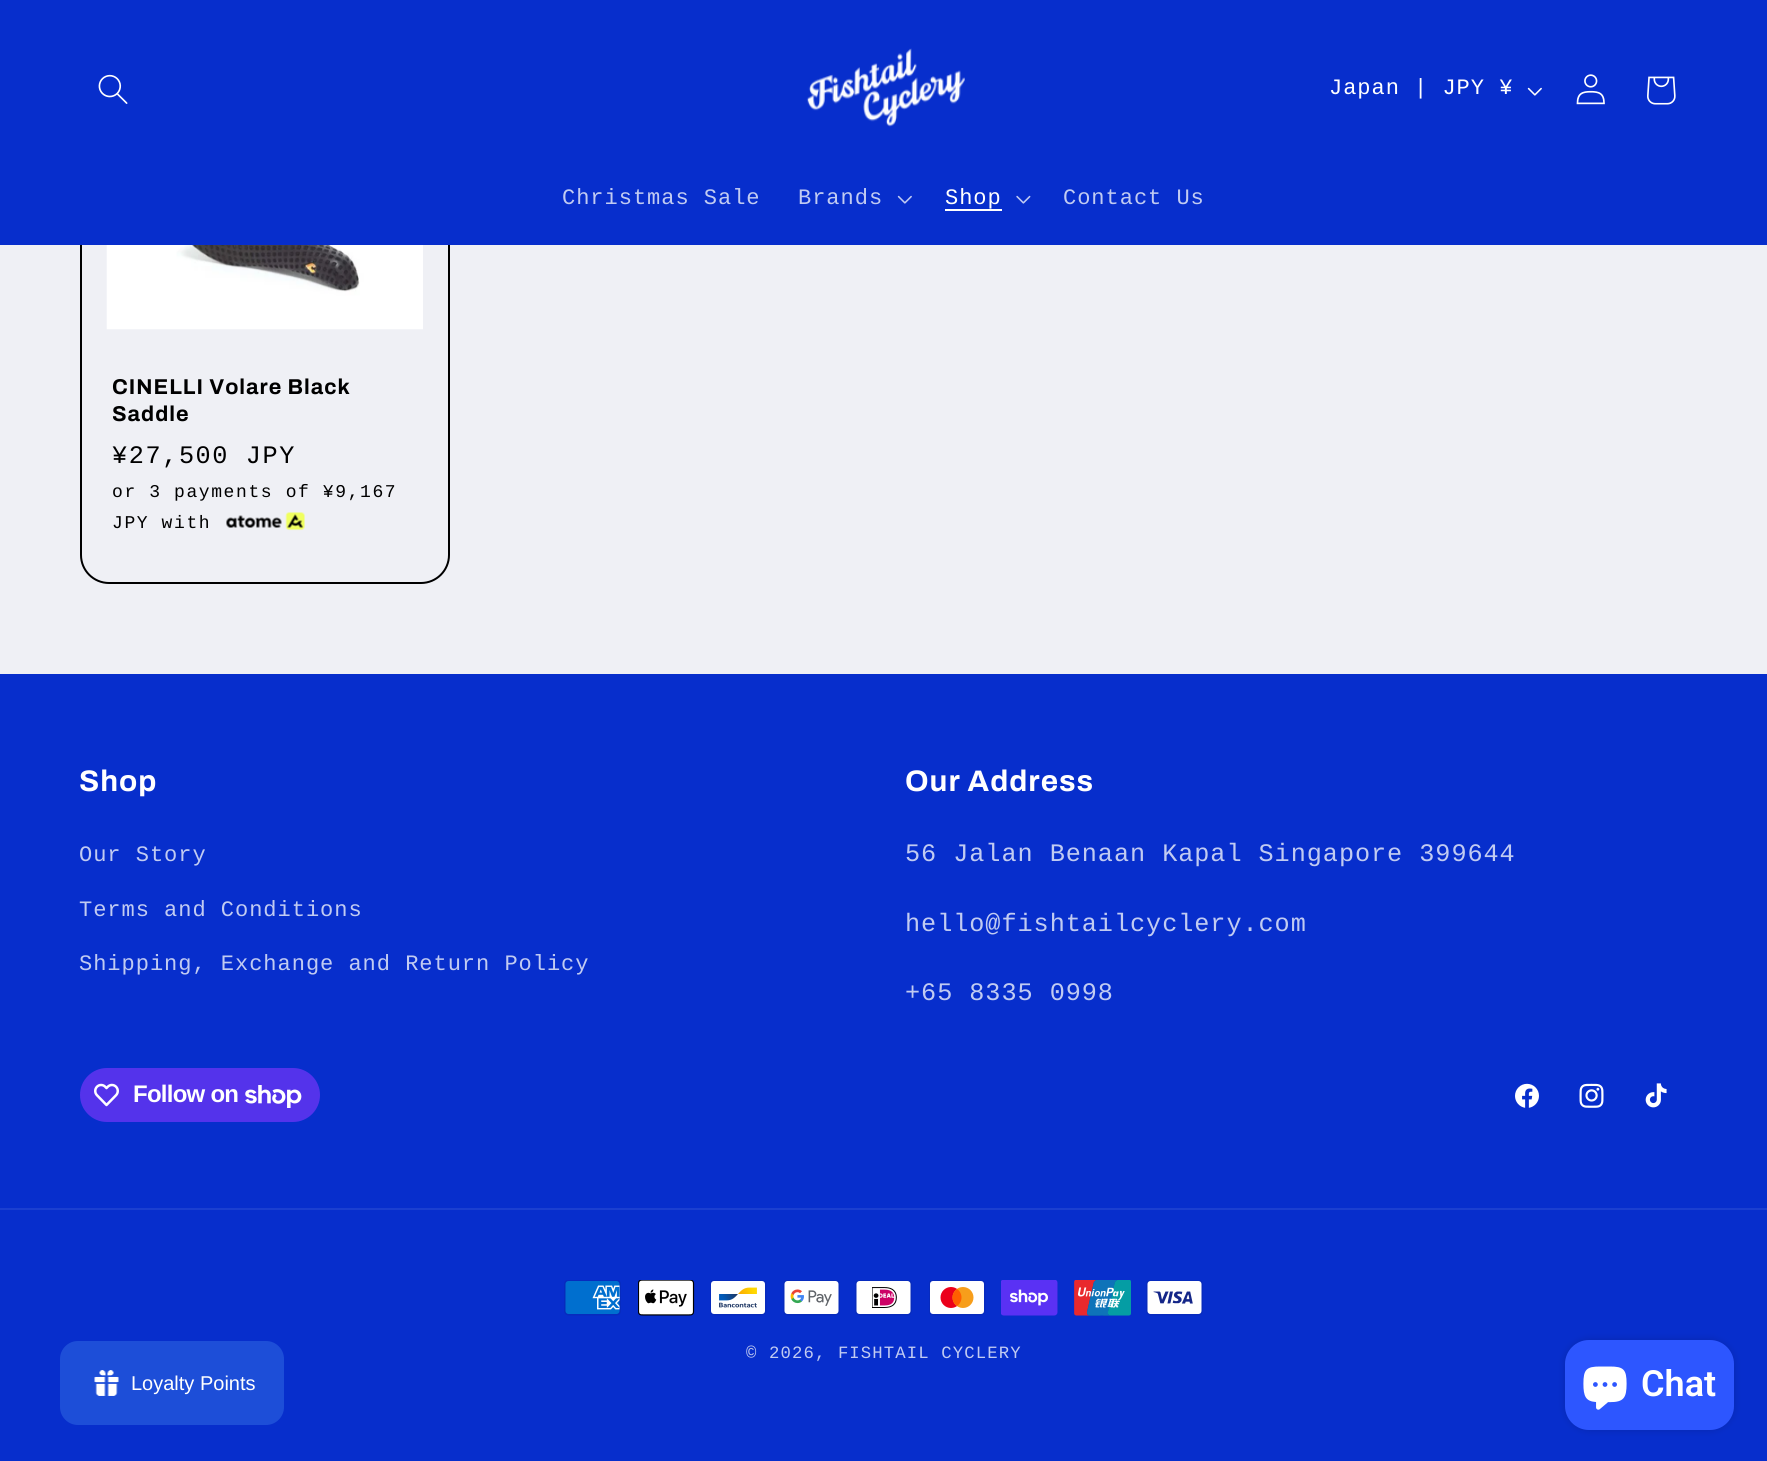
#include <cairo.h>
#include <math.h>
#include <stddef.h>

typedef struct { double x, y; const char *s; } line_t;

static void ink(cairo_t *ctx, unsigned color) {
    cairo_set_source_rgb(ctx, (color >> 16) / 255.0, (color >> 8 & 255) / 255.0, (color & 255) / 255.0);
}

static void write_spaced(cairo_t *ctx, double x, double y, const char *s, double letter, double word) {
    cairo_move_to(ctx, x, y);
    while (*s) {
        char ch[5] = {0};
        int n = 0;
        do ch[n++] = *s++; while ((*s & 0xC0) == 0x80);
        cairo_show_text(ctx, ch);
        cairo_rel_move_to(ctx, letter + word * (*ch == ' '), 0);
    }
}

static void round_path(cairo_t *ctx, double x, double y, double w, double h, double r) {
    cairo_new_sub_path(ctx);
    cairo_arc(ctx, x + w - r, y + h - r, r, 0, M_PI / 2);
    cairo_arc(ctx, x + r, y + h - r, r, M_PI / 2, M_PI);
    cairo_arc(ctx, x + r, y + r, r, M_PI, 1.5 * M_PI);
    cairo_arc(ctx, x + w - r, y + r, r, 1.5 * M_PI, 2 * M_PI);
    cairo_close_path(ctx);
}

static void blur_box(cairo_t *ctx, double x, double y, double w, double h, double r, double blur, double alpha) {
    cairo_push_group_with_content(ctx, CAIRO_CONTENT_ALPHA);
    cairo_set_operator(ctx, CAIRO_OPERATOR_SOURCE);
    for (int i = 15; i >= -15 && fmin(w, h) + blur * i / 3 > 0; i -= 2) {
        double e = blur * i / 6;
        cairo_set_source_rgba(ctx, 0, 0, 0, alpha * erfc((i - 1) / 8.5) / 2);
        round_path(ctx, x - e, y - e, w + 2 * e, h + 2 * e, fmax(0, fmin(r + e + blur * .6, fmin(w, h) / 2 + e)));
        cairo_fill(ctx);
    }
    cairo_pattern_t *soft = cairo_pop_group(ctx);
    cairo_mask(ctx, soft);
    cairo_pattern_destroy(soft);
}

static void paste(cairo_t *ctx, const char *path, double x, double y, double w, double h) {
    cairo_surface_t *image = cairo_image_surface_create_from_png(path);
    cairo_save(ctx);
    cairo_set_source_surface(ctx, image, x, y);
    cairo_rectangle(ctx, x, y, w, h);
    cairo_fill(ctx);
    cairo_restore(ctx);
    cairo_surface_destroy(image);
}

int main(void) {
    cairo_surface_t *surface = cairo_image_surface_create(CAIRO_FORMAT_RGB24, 1767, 1461);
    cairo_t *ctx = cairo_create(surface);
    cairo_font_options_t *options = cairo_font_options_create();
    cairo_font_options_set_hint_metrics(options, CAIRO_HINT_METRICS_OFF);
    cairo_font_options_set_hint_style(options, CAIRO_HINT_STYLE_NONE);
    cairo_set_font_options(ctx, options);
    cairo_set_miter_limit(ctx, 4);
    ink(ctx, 0xEFF0F5);
    cairo_paint(ctx);
    round_path(ctx, 81, 109, 368, 474, 28);
    ink(ctx, 0x000000);
    cairo_stroke(ctx);
    ink(ctx, 0x072ECC);
    cairo_rectangle(ctx, 0, 0, 1767, 245);
    cairo_fill(ctx);
    paste(ctx, "media/1.png", 98, 74, 30, 30);
    paste(ctx, "media/2.png", 806, 48, 159, 79);
    cairo_select_font_face(ctx, "Liberation Mono", CAIRO_FONT_SLANT_NORMAL, CAIRO_FONT_WEIGHT_NORMAL);
    cairo_set_font_size(ctx, 22.05);
    ink(ctx, 0xFFFFFF);
    write_spaced(ctx, 1329, 94, "Japan | JPY ¥", 0.95, 0);
    paste(ctx, "media/3.png", 1527, 87, 15, 9);
    paste(ctx, "media/4.png", 1576, 74, 29, 31);
    paste(ctx, "media/5.png", 1647, 76, 29, 29);
    ink(ctx, 0xC1CBF2);
    write_spaced(ctx, 562, 204, "Christmas Sale", 0.95, 0);
    write_spaced(ctx, 798, 204, "Brands", 0.95, 0);
    paste(ctx, "media/6.png", 897, 195, 15, 9);
    ink(ctx, 0xFFFFFF);
    write_spaced(ctx, 945, 204, "Shop", 0.95, 0);
    cairo_rectangle(ctx, 945, 209, 57, 2);
    cairo_fill(ctx);
    paste(ctx, "media/7.png", 1016, 195, 15, 9);
    ink(ctx, 0xC1CBF2);
    write_spaced(ctx, 1063, 204, "Contact Us", 0.95, 0);
    paste(ctx, "media/8.png", 106, 245, 317, 85);
    cairo_select_font_face(ctx, "Archivo", CAIRO_FONT_SLANT_NORMAL, CAIRO_FONT_WEIGHT_BOLD);
    cairo_set_font_size(ctx, 21.5);
    ink(ctx, 0x000000);
    write_spaced(ctx, 112, 394, "CINELLI Volare Black", 1, 0);
    write_spaced(ctx, 112, 421, "Saddle", 1, 0);
    cairo_select_font_face(ctx, "Liberation Mono", CAIRO_FONT_SLANT_NORMAL, CAIRO_FONT_WEIGHT_NORMAL);
    cairo_set_font_size(ctx, 25.2);
    write_spaced(ctx, 112, 463, "¥27,500 JPY", 1.6, 0);
    cairo_set_font_size(ctx, 18);
    write_spaced(ctx, 112, 497, "or 3 payments of ¥9,167", 1.6, 0);
    write_spaced(ctx, 112, 528, "JPY with", 1.6, 0);
    paste(ctx, "media/9.png", 226, 512, 79, 19);
    ink(ctx, 0x072ECC);
    cairo_rectangle(ctx, 0, 674, 1767, 787);
    cairo_fill(ctx);
    cairo_select_font_face(ctx, "Archivo", CAIRO_FONT_SLANT_NORMAL, CAIRO_FONT_WEIGHT_BOLD);
    cairo_set_font_size(ctx, 29.75);
    ink(ctx, 0xFFFFFF);
    write_spaced(ctx, 79, 791, "Shop", 1, 0);
    cairo_select_font_face(ctx, "Liberation Mono", CAIRO_FONT_SLANT_NORMAL, CAIRO_FONT_WEIGHT_NORMAL);
    cairo_set_font_size(ctx, 22.05);
    ink(ctx, 0xC1CBF2);
    {
        static const line_t items[] = {
            {79, 861, "Our Story"},
            {79, 916, "Terms and Conditions"},
            {79, 970, "Shipping, Exchange and Return Policy"},
        };
        for (size_t i = 0; i < sizeof items / sizeof *items; i++) {
            write_spaced(ctx, items[i].x, items[i].y, items[i].s, 0.95, 0);
        }
    }
    cairo_select_font_face(ctx, "Archivo", CAIRO_FONT_SLANT_NORMAL, CAIRO_FONT_WEIGHT_BOLD);
    cairo_set_font_size(ctx, 29.75);
    ink(ctx, 0xFFFFFF);
    write_spaced(ctx, 905, 791, "Our Address", 1, 0);
    cairo_select_font_face(ctx, "Liberation Mono", CAIRO_FONT_SLANT_NORMAL, CAIRO_FONT_WEIGHT_NORMAL);
    cairo_set_font_size(ctx, 25.2);
    ink(ctx, 0xC1CBF2);
    {
        static const line_t items[] = {
            {905, 861, "56 Jalan Benaan Kapal Singapore 399644"},
            {905, 931, "hello@fishtailcyclery.com"},
            {905, 1000, "+65 8335 0998"},
        };
        for (size_t i = 0; i < sizeof items / sizeof *items; i++) {
            write_spaced(ctx, items[i].x, items[i].y, items[i].s, 0.95, 0);
        }
    }
    ink(ctx, 0x5433EB);
    round_path(ctx, 80, 1068, 240, 54, 27);
    cairo_fill(ctx);
    paste(ctx, "media/10.png", 94, 1083, 25, 24);
    cairo_select_font_face(ctx, "Liberation Sans", CAIRO_FONT_SLANT_NORMAL, CAIRO_FONT_WEIGHT_BOLD);
    cairo_set_font_size(ctx, 24);
    ink(ctx, 0xFFFFFF);
    write_spaced(ctx, 133, 1102, "Follow on", -0.75, 0);
    paste(ctx, "media/11.png", 245, 1085, 57, 23);
    paste(ctx, "media/12.png", 1515, 1083, 24, 25);
    paste(ctx, "media/13.png", 1579, 1083, 25, 25);
    paste(ctx, "media/14.png", 1645, 1083, 22, 25);
    ink(ctx, 0x1B3FD0);
    cairo_rectangle(ctx, 0, 1208, 1767, 2);
    cairo_fill(ctx);
    paste(ctx, "media/15.png", 564, 1280, 57, 36);
    paste(ctx, "media/16.png", 638, 1280, 57, 36);
    paste(ctx, "media/17.png", 710, 1280, 57, 36);
    paste(ctx, "media/18.png", 783, 1280, 57, 36);
    paste(ctx, "media/19.png", 855, 1280, 57, 36);
    paste(ctx, "media/20.png", 929, 1280, 57, 36);
    paste(ctx, "media/21.png", 1001, 1280, 57, 36);
    paste(ctx, "media/22.png", 1074, 1280, 57, 36);
    paste(ctx, "media/23.png", 1146, 1280, 57, 36);
    cairo_select_font_face(ctx, "Liberation Mono", CAIRO_FONT_SLANT_NORMAL, CAIRO_FONT_WEIGHT_NORMAL);
    cairo_set_font_size(ctx, 17.3);
    ink(ctx, 0xC1CBF2);
    write_spaced(ctx, 746, 1358, "© 2026, FISHTAIL CYCLERY", 1.1, 0);
    ink(ctx, 0x1D4ED8);
    round_path(ctx, 60, 1341, 224, 84, 18);
    cairo_fill(ctx);
    paste(ctx, "media/24.png", 94, 1370, 25, 26);
    cairo_select_font_face(ctx, "Liberation Sans", CAIRO_FONT_SLANT_NORMAL, CAIRO_FONT_WEIGHT_NORMAL);
    cairo_set_font_size(ctx, 20);
    ink(ctx, 0xFFFFFF);
    cairo_move_to(ctx, 131, 1390);
    cairo_show_text(ctx, "Loyalty Points");
    ink(ctx, 0x000000);
    blur_box(ctx, 1565, 1340, 169, 90, 24, 4, 0.15);
    ink(ctx, 0x2D56FF);
    round_path(ctx, 1565, 1340, 169, 90, 24);
    cairo_fill(ctx);
    paste(ctx, "media/25.png", 1583, 1366, 44, 44);
    cairo_select_font_face(ctx, "Roboto SemiBold", CAIRO_FONT_SLANT_NORMAL, CAIRO_FONT_WEIGHT_NORMAL);
    cairo_set_font_size(ctx, 36);
    ink(ctx, 0xFFFFFF);
    cairo_move_to(ctx, 1641, 1396);
    cairo_show_text(ctx, "Chat");
    cairo_surface_write_to_png(surface, "image.png");
    cairo_font_options_destroy(options);
    cairo_destroy(ctx);
    cairo_surface_destroy(surface);
    return 0;
}
